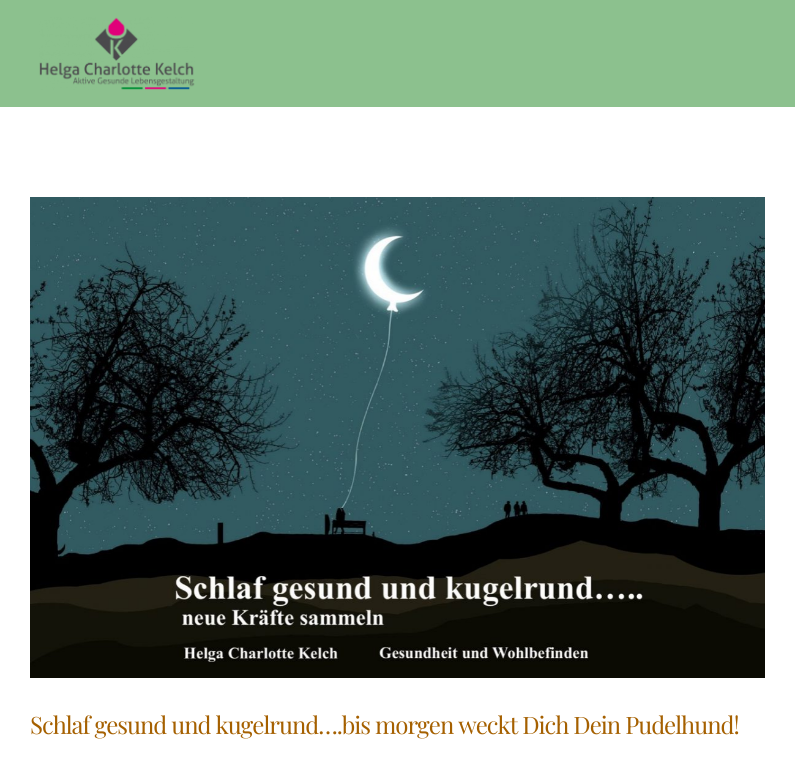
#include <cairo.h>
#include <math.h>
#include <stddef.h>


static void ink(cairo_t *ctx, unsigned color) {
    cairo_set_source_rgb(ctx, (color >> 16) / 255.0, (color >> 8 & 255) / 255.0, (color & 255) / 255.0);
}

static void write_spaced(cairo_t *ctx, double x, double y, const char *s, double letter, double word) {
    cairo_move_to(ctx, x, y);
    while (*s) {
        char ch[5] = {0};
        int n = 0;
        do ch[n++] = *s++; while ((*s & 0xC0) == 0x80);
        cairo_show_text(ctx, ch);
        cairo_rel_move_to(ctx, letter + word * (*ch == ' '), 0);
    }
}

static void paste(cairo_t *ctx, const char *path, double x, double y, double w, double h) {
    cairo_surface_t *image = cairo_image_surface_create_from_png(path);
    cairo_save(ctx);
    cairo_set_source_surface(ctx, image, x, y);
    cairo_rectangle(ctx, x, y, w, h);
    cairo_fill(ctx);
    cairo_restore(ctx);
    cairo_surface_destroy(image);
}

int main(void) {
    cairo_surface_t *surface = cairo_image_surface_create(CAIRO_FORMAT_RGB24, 795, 779);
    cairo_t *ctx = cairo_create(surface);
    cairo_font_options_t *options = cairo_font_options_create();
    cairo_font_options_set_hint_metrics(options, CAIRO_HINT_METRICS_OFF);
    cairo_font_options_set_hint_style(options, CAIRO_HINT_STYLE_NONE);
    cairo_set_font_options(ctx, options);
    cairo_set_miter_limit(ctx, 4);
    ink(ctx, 0xFFFFFF);
    cairo_paint(ctx);
    ink(ctx, 0x8CC18E);
    cairo_rectangle(ctx, 0, 0, 795, 107);
    cairo_fill(ctx);
    paste(ctx, "media/1.png", 39, 17, 156, 73);
    paste(ctx, "media/2.png", 30, 197, 735, 481);
    cairo_select_font_face(ctx, "Playfair Display", CAIRO_FONT_SLANT_NORMAL, CAIRO_FONT_WEIGHT_NORMAL);
    cairo_set_font_size(ctx, 24);
    ink(ctx, 0xA56000);
    write_spaced(ctx, 30, 734, "Schlaf gesund und kugelrund….bis morgen weckt Dich Dein Pudelhund!", -1, 0);
    cairo_surface_write_to_png(surface, "image.png");
    cairo_font_options_destroy(options);
    cairo_destroy(ctx);
    cairo_surface_destroy(surface);
    return 0;
}
